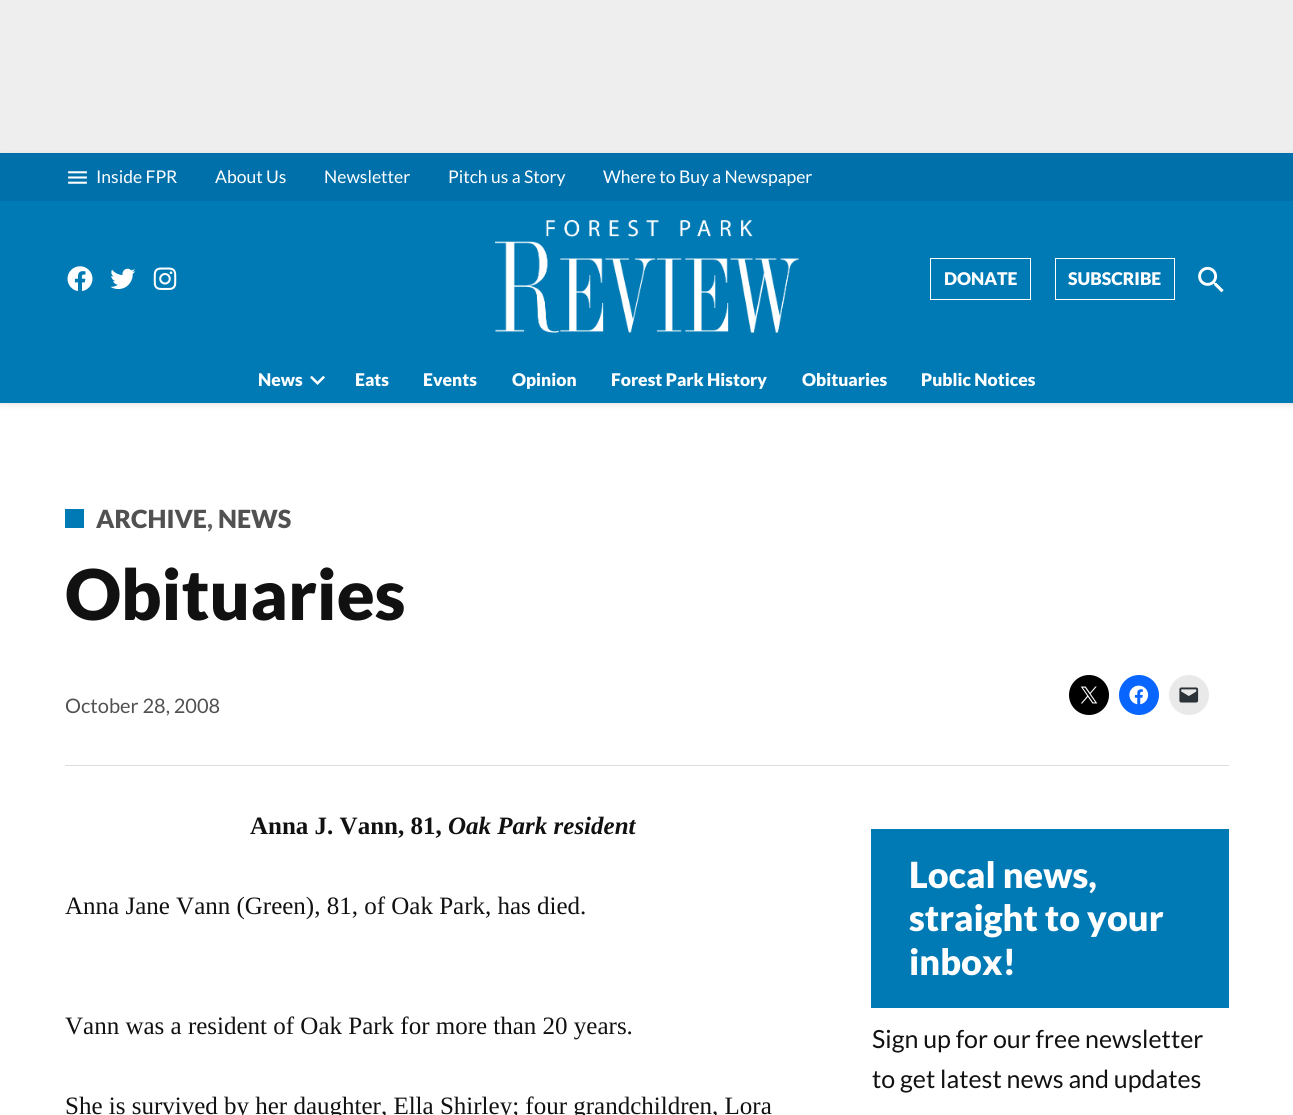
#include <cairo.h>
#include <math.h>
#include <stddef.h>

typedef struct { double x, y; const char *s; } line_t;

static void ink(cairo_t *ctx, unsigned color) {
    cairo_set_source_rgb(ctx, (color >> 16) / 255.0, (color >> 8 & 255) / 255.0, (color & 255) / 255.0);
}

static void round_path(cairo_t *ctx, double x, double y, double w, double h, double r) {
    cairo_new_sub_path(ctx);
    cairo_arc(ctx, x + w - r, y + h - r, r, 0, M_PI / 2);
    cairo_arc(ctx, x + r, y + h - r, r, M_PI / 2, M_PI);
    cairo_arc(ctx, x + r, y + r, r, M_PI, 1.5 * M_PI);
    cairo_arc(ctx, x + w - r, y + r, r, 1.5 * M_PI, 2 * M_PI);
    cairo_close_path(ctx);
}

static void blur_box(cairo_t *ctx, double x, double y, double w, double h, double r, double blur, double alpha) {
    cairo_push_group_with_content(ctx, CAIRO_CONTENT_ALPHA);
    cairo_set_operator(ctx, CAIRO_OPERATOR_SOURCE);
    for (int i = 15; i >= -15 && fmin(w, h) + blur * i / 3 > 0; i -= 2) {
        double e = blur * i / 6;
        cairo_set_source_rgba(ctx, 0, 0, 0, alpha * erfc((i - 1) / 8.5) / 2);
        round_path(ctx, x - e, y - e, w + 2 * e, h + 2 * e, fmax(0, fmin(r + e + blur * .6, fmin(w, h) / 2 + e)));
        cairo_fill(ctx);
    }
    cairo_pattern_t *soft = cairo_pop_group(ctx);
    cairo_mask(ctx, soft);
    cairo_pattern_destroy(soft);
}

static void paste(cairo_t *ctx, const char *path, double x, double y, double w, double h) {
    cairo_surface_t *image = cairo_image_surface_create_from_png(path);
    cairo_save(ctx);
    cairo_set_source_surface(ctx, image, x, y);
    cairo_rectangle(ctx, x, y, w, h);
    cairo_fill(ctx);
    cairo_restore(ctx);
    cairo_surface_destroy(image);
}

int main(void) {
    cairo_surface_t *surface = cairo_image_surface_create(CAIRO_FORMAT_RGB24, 1293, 1115);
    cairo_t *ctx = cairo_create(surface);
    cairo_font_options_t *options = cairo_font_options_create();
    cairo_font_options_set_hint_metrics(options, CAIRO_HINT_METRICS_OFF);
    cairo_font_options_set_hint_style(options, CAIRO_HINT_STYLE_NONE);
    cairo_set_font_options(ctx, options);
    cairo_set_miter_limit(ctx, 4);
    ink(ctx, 0xFFFFFF);
    cairo_paint(ctx);
    ink(ctx, 0xEEEEEE);
    cairo_rectangle(ctx, 0, 0, 1293, 153);
    cairo_fill(ctx);
    ink(ctx, 0x000000);
    blur_box(ctx, 0, 155, 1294, 250, 0, 3, 0.1);
    ink(ctx, 0x0070AB);
    cairo_rectangle(ctx, 0, 153, 1293, 48);
    cairo_fill(ctx);
    paste(ctx, "media/1.png", 68, 171, 19, 13);
    cairo_select_font_face(ctx, "Lato", CAIRO_FONT_SLANT_NORMAL, CAIRO_FONT_WEIGHT_NORMAL);
    cairo_set_font_size(ctx, 17.5);
    ink(ctx, 0xFFFFFF);
    {
        static const line_t items[] = {
            {96, 183, "Inside FPR"},
            {215, 183, "About Us"},
            {324, 183, "Newsletter"},
            {448, 183, "Pitch us a Story"},
            {603, 183, "Where to Buy a Newspaper"},
        };
        for (size_t i = 0; i < sizeof items / sizeof *items; i++) {
            cairo_move_to(ctx, items[i].x, items[i].y);
            cairo_show_text(ctx, items[i].s);
        }
    }
    ink(ctx, 0x007AB5);
    cairo_rectangle(ctx, 0, 201, 1293, 202);
    cairo_fill(ctx);
    paste(ctx, "media/2.png", 67, 266, 26, 26);
    paste(ctx, "media/3.png", 110, 268, 26, 22);
    paste(ctx, "media/4.png", 153, 267, 24, 23);
    paste(ctx, "media/5.png", 495, 220, 304, 113);
    cairo_rectangle(ctx, 930.5, 258.5, 100, 41);
    ink(ctx, 0xFFFFFF);
    cairo_set_line_width(ctx, 1);
    cairo_stroke(ctx);
    cairo_select_font_face(ctx, "Lato Black", CAIRO_FONT_SLANT_NORMAL, CAIRO_FONT_WEIGHT_NORMAL);
    cairo_move_to(ctx, 944, 285);
    cairo_show_text(ctx, "DONATE");
    cairo_rectangle(ctx, 1055.5, 258.5, 119, 41);
    cairo_stroke(ctx);
    cairo_move_to(ctx, 1068, 285);
    cairo_show_text(ctx, "SUBSCRIBE");
    paste(ctx, "media/6.png", 1198, 266, 26, 27);
    cairo_move_to(ctx, 258, 386);
    cairo_show_text(ctx, "News");
    paste(ctx, "media/7.png", 310, 375, 15, 10);
    {
        static const line_t items[] = {
            {355, 386, "Eats"},
            {423, 386, "Events"},
            {512, 386, "Opinion"},
            {611, 386, "Forest Park History"},
            {802, 386, "Obituaries"},
            {921, 386, "Public Notices"},
        };
        for (size_t i = 0; i < sizeof items / sizeof *items; i++) {
            cairo_move_to(ctx, items[i].x, items[i].y);
            cairo_show_text(ctx, items[i].s);
        }
    }
    ink(ctx, 0xDDDDDD);
    cairo_rectangle(ctx, 65, 765, 1164, 1);
    cairo_fill(ctx);
    ink(ctx, 0x007AB5);
    cairo_rectangle(ctx, 65, 509, 19, 19);
    cairo_fill(ctx);
    cairo_set_font_size(ctx, 25);
    ink(ctx, 0x515151);
    cairo_move_to(ctx, 96, 528);
    cairo_show_text(ctx, "ARCHIVE");
    ink(ctx, 0x666666);
    cairo_move_to(ctx, 207, 528);
    cairo_show_text(ctx, ",");
    ink(ctx, 0x515151);
    cairo_move_to(ctx, 218, 528);
    cairo_show_text(ctx, "NEWS");
    cairo_set_font_size(ctx, 70);
    ink(ctx, 0x111111);
    cairo_move_to(ctx, 65, 620);
    cairo_show_text(ctx, "Obituaries");
    cairo_select_font_face(ctx, "Lato", CAIRO_FONT_SLANT_NORMAL, CAIRO_FONT_WEIGHT_NORMAL);
    cairo_set_font_size(ctx, 20);
    ink(ctx, 0x515151);
    cairo_move_to(ctx, 65, 713);
    cairo_show_text(ctx, "October 28, 2008");
    ink(ctx, 0x000000);
    cairo_new_path(ctx);
    cairo_arc(ctx, 1089, 695, 20, 0, 2 * M_PI);
    cairo_fill(ctx);
    paste(ctx, "media/8.png", 1080, 686, 18, 18);
    ink(ctx, 0x0866FF);
    cairo_arc(ctx, 1139, 695, 20, 0, 2 * M_PI);
    cairo_fill(ctx);
    paste(ctx, "media/9.png", 1129, 685, 20, 20);
    ink(ctx, 0xE9E9E9);
    cairo_arc(ctx, 1189, 695, 20, 0, 2 * M_PI);
    cairo_fill(ctx);
    paste(ctx, "media/10.png", 1179, 687, 20, 16);
    cairo_select_font_face(ctx, "Liberation Serif", CAIRO_FONT_SLANT_NORMAL, CAIRO_FONT_WEIGHT_BOLD);
    cairo_set_font_size(ctx, 25);
    ink(ctx, 0x111111);
    cairo_move_to(ctx, 250, 834);
    cairo_show_text(ctx, "Anna J. Vann, 81,");
    cairo_select_font_face(ctx, "Liberation Serif", CAIRO_FONT_SLANT_ITALIC, CAIRO_FONT_WEIGHT_BOLD);
    cairo_move_to(ctx, 448, 834);
    cairo_show_text(ctx, "Oak Park resident");
    cairo_select_font_face(ctx, "Liberation Serif", CAIRO_FONT_SLANT_NORMAL, CAIRO_FONT_WEIGHT_NORMAL);
    {
        static const line_t items[] = {
            {65, 914, "Anna Jane Vann (Green), 81, of Oak Park, has died."},
            {65, 1034, "Vann was a resident of Oak Park for more than 20 years."},
            {65, 1114, "She is survived by her daughter, Ella Shirley; four grandchildren, Lora"},
        };
        for (size_t i = 0; i < sizeof items / sizeof *items; i++) {
            cairo_move_to(ctx, items[i].x, items[i].y);
            cairo_show_text(ctx, items[i].s);
        }
    }
    ink(ctx, 0x007AB5);
    cairo_rectangle(ctx, 871, 829, 358, 179);
    cairo_fill(ctx);
    cairo_select_font_face(ctx, "Lato Black", CAIRO_FONT_SLANT_NORMAL, CAIRO_FONT_WEIGHT_NORMAL);
    cairo_set_font_size(ctx, 36);
    ink(ctx, 0xFFFFFF);
    {
        static const line_t items[] = {
            {909, 888, "Local news,"},
            {909, 931, "straight to your"},
            {909, 975, "inbox!"},
        };
        for (size_t i = 0; i < sizeof items / sizeof *items; i++) {
            cairo_move_to(ctx, items[i].x, items[i].y);
            cairo_show_text(ctx, items[i].s);
        }
    }
    cairo_select_font_face(ctx, "Lato", CAIRO_FONT_SLANT_NORMAL, CAIRO_FONT_WEIGHT_NORMAL);
    cairo_set_font_size(ctx, 25);
    ink(ctx, 0x111111);
    cairo_move_to(ctx, 872, 1048);
    cairo_show_text(ctx, "Sign up for our free newsletter");
    cairo_move_to(ctx, 872, 1088);
    cairo_show_text(ctx, "to get latest news and updates");
    cairo_surface_write_to_png(surface, "image.png");
    cairo_font_options_destroy(options);
    cairo_destroy(ctx);
    cairo_surface_destroy(surface);
    return 0;
}
